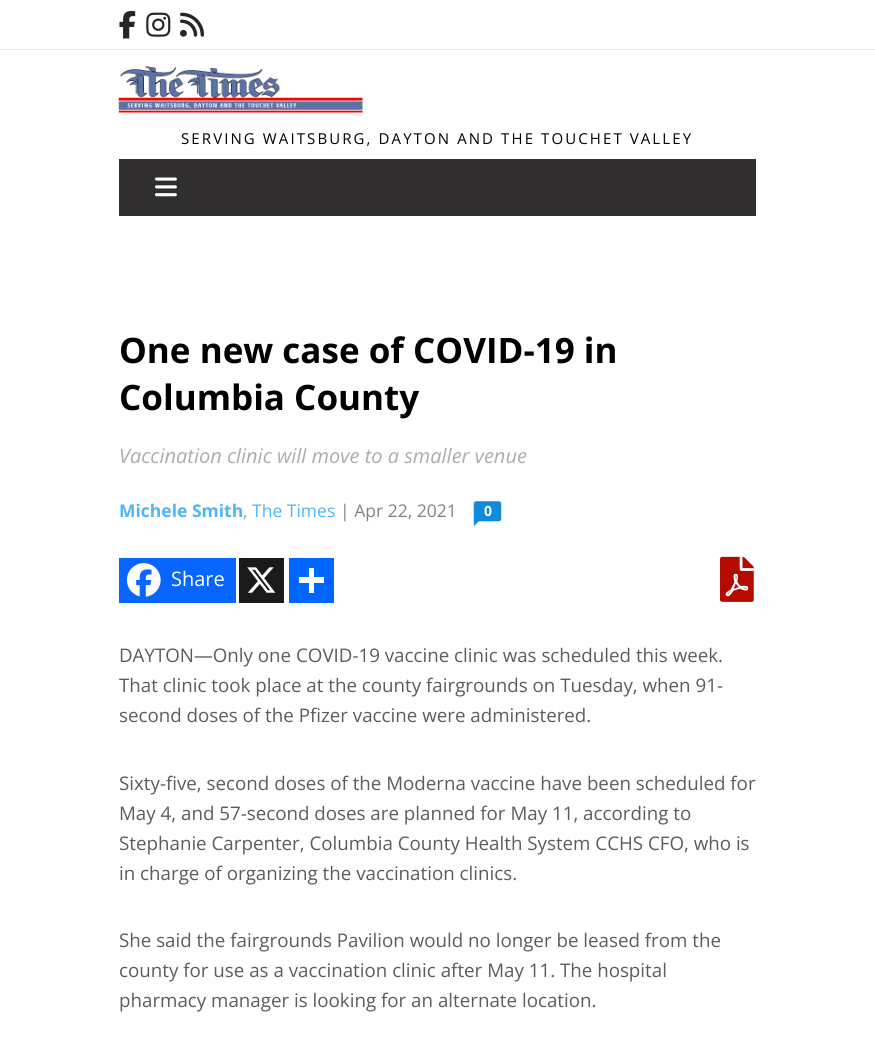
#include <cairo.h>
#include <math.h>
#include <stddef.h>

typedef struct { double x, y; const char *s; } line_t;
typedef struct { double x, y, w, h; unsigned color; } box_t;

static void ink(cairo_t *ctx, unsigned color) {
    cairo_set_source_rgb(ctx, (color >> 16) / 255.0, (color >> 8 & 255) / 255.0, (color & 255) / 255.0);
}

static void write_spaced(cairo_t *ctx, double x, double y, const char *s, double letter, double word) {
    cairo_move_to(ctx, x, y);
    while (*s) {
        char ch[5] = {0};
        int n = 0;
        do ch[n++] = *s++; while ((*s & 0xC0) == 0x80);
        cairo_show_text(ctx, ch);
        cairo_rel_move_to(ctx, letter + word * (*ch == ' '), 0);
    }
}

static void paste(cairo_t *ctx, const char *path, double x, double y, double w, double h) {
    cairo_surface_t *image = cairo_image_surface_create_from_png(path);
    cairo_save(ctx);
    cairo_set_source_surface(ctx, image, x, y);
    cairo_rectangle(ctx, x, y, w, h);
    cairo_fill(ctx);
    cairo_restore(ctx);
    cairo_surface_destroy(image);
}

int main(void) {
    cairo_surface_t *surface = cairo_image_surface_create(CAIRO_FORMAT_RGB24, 875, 1056);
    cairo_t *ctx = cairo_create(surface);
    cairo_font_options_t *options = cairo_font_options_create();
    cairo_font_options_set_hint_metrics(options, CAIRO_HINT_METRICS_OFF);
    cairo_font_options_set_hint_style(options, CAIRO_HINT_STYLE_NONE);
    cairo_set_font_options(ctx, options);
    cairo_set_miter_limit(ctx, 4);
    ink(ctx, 0xFFFFFF);
    cairo_paint(ctx);
    ink(ctx, 0xEDEDED);
    cairo_rectangle(ctx, 0, 49, 875, 1);
    cairo_fill(ctx);
    paste(ctx, "media/1.png", 119, 10, 17, 29);
    paste(ctx, "media/2.png", 146, 12, 25, 25);
    paste(ctx, "media/3.png", 180, 12, 25, 25);
    paste(ctx, "media/4.png", 118, 66, 245, 47);
    cairo_select_font_face(ctx, "Open Sans", CAIRO_FONT_SLANT_NORMAL, CAIRO_FONT_WEIGHT_NORMAL);
    cairo_set_font_size(ctx, 15);
    ink(ctx, 0x000000);
    write_spaced(ctx, 181, 144, "SERVING WAITSBURG, DAYTON AND THE TOUCHET VALLEY", 2.1, 0);
    ink(ctx, 0x312E2F);
    cairo_rectangle(ctx, 119, 159, 637, 57);
    cairo_fill(ctx);
    paste(ctx, "media/5.png", 155, 177, 22, 20);
    cairo_select_font_face(ctx, "Open Sans", CAIRO_FONT_SLANT_NORMAL, CAIRO_FONT_WEIGHT_BOLD);
    cairo_set_font_size(ctx, 35);
    ink(ctx, 0x000000);
    cairo_move_to(ctx, 119, 363);
    cairo_show_text(ctx, "One new case of COVID-19 in");
    cairo_move_to(ctx, 119, 410);
    cairo_show_text(ctx, "Columbia County");
    cairo_select_font_face(ctx, "Open Sans", CAIRO_FONT_SLANT_ITALIC, CAIRO_FONT_WEIGHT_NORMAL);
    cairo_set_font_size(ctx, 20);
    ink(ctx, 0xACACAC);
    cairo_move_to(ctx, 119, 463);
    cairo_show_text(ctx, "Vaccination clinic will move to a smaller venue");
    cairo_select_font_face(ctx, "Open Sans", CAIRO_FONT_SLANT_NORMAL, CAIRO_FONT_WEIGHT_BOLD);
    cairo_set_font_size(ctx, 17.5);
    ink(ctx, 0x50B5F6);
    cairo_move_to(ctx, 119, 517);
    cairo_show_text(ctx, "Michele Smith");
    cairo_select_font_face(ctx, "Open Sans", CAIRO_FONT_SLANT_NORMAL, CAIRO_FONT_WEIGHT_NORMAL);
    cairo_move_to(ctx, 243, 517);
    cairo_show_text(ctx, ", The Times");
    ink(ctx, 0x7C8387);
    cairo_move_to(ctx, 340, 517);
    cairo_show_text(ctx, "| Apr 22, 2021");
    paste(ctx, "media/6.png", 473, 501, 29, 26);
    cairo_select_font_face(ctx, "Open Sans", CAIRO_FONT_SLANT_NORMAL, CAIRO_FONT_WEIGHT_BOLD);
    cairo_set_font_size(ctx, 14);
    ink(ctx, 0xFFFFFF);
    cairo_move_to(ctx, 484, 516);
    cairo_show_text(ctx, "0");
    ink(ctx, 0x0866FF);
    cairo_rectangle(ctx, 119, 558, 117, 45);
    cairo_fill(ctx);
    paste(ctx, "media/7.png", 126, 563, 35, 34);
    cairo_select_font_face(ctx, "Open Sans", CAIRO_FONT_SLANT_NORMAL, CAIRO_FONT_WEIGHT_NORMAL);
    cairo_set_font_size(ctx, 20);
    ink(ctx, 0xFFFFFF);
    cairo_move_to(ctx, 171, 586);
    cairo_show_text(ctx, "Share");
    ink(ctx, 0x1A1A1A);
    cairo_rectangle(ctx, 239, 558, 45, 45);
    cairo_fill(ctx);
    paste(ctx, "media/8.png", 247, 567, 29, 26);
    {
        static const box_t items[] = {
            {289, 558, 45, 45, 0x0166FF},
            {309, 568, 5, 25, 0xFFFFFF},
            {299, 577, 25, 6, 0xFFFFFF},
        };
        for (size_t i = 0; i < sizeof items / sizeof *items; i++) {
            ink(ctx, items[i].color);
            cairo_rectangle(ctx, items[i].x, items[i].y, items[i].w, items[i].h);
            cairo_fill(ctx);
        }
    }
    paste(ctx, "media/9.png", 720, 556, 34, 46);
    cairo_set_font_size(ctx, 18.75);
    ink(ctx, 0x5C5C5C);
    {
        static const line_t items[] = {
            {119, 662, "DAYTON—Only one COVID-19 vaccine clinic was scheduled this week."},
            {119, 692, "That clinic took place at the county fairgrounds on Tuesday, when 91-"},
            {119, 722, "second doses of the Pfizer vaccine were administered."},
            {119, 790, "Sixty-five, second doses of the Moderna vaccine have been scheduled for"},
            {119, 820, "May 4, and 57-second doses are planned for May 11, according to"},
            {119, 850, "Stephanie Carpenter, Columbia County Health System CCHS CFO, who is"},
            {119, 880, "in charge of organizing the vaccination clinics."},
            {119, 947, "She said the fairgrounds Pavilion would no longer be leased from the"},
            {119, 977, "county for use as a vaccination clinic after May 11. The hospital"},
            {119, 1007, "pharmacy manager is looking for an alternate location."},
        };
        for (size_t i = 0; i < sizeof items / sizeof *items; i++) {
            cairo_move_to(ctx, items[i].x, items[i].y);
            cairo_show_text(ctx, items[i].s);
        }
    }
    cairo_surface_write_to_png(surface, "image.png");
    cairo_font_options_destroy(options);
    cairo_destroy(ctx);
    cairo_surface_destroy(surface);
    return 0;
}
